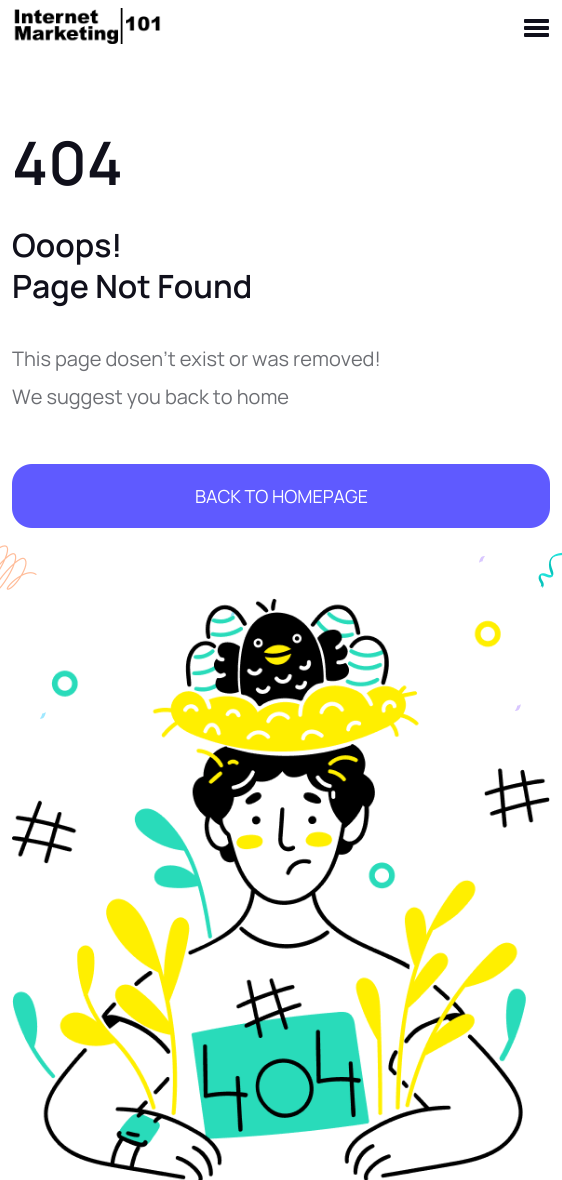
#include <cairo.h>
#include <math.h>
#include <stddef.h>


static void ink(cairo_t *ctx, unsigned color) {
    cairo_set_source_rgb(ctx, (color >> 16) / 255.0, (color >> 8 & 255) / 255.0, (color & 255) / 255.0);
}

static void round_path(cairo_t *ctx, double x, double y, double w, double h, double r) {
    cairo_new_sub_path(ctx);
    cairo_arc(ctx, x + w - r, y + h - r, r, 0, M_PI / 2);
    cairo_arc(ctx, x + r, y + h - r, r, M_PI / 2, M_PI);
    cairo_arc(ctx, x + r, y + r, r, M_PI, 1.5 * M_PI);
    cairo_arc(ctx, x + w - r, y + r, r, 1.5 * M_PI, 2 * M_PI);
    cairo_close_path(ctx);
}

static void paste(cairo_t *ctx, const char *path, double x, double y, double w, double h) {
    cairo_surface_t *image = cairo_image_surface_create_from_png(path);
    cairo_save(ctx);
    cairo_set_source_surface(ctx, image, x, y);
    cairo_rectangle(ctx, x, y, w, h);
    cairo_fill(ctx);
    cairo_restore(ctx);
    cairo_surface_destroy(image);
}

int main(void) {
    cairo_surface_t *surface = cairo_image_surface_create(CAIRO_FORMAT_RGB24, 562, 1180);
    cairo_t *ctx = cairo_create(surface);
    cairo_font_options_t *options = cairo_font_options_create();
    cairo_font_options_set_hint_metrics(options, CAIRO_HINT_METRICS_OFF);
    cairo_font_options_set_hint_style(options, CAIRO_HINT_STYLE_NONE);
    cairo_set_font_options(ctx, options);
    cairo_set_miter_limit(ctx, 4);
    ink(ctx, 0xFFFFFF);
    cairo_paint(ctx);
    paste(ctx, "media/1.png", 14, 8, 147, 36);
    ink(ctx, 0x10101B);
    round_path(ctx, 524, 19, 25, 4, 1);
    cairo_fill(ctx);
    round_path(ctx, 524, 26, 25, 4, 1);
    cairo_fill(ctx);
    round_path(ctx, 524, 33, 25, 4, 1);
    cairo_fill(ctx);
    paste(ctx, "media/2.png", 0, 545, 562, 174);
    cairo_select_font_face(ctx, "Manrope SemiBold", CAIRO_FONT_SLANT_NORMAL, CAIRO_FONT_WEIGHT_NORMAL);
    cairo_set_font_size(ctx, 60);
    cairo_move_to(ctx, 12, 185);
    cairo_show_text(ctx, "404");
    cairo_set_font_size(ctx, 32);
    cairo_move_to(ctx, 12, 257);
    cairo_show_text(ctx, "Ooops!");
    cairo_move_to(ctx, 12, 298);
    cairo_show_text(ctx, "Page Not Found");
    cairo_select_font_face(ctx, "Manrope", CAIRO_FONT_SLANT_NORMAL, CAIRO_FONT_WEIGHT_NORMAL);
    cairo_set_font_size(ctx, 20);
    ink(ctx, 0x6C6E73);
    cairo_move_to(ctx, 12, 366);
    cairo_show_text(ctx, "This page dosen’t exist or was removed!");
    cairo_move_to(ctx, 12, 404);
    cairo_show_text(ctx, "We suggest you back to home");
    ink(ctx, 0x5F5AFF);
    round_path(ctx, 12, 464, 538, 64, 20);
    cairo_fill(ctx);
    cairo_set_font_size(ctx, 18);
    ink(ctx, 0xFFFFFF);
    cairo_move_to(ctx, 195, 503);
    cairo_show_text(ctx, "BACK TO HOMEPAGE");
    paste(ctx, "media/3.png", 12, 598, 538, 582);
    cairo_surface_write_to_png(surface, "image.png");
    cairo_font_options_destroy(options);
    cairo_destroy(ctx);
    cairo_surface_destroy(surface);
    return 0;
}
